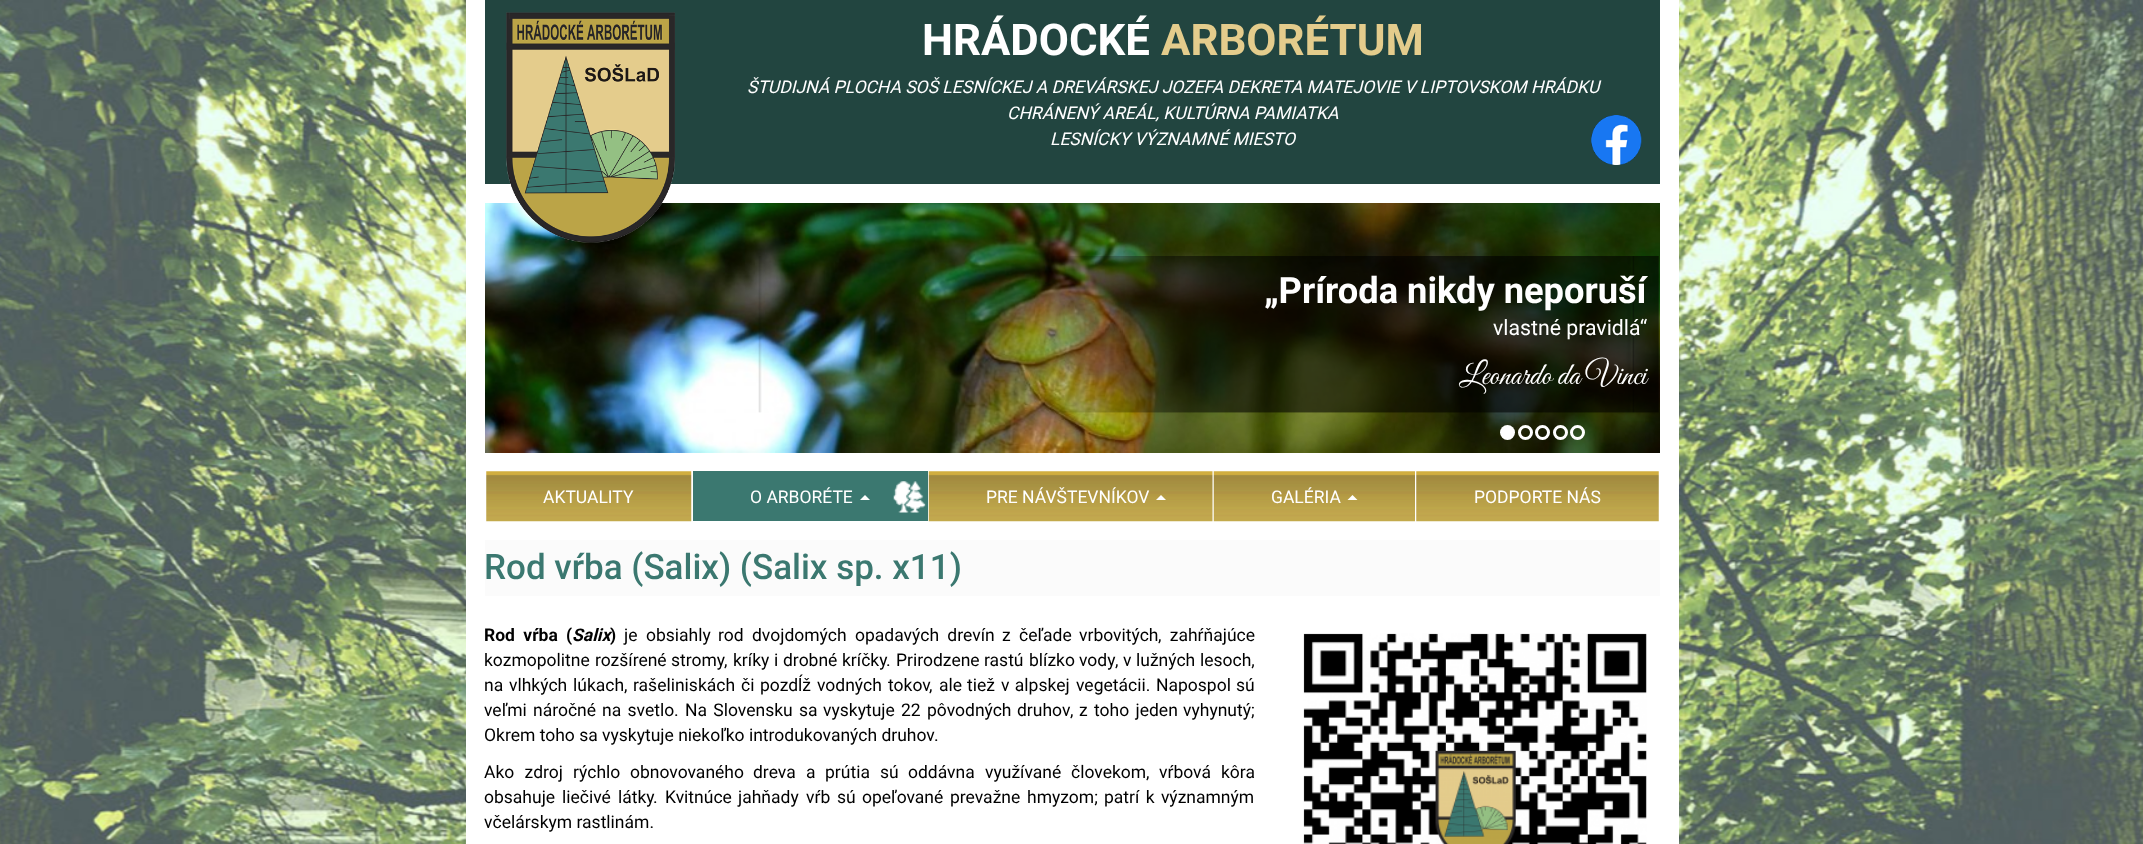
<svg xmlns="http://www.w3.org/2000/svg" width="2143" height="844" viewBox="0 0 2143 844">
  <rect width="100%" height="100%" fill="#fff"/>
  <image x="0" y="0" width="2143" height="844" href="img/1.png"/>
  <path d="M466 0h1213v844H466z" fill="#fff"/>
  <path d="M485 0h1175v184H485z" fill="#224540"/>
  <image x="485" y="203" width="1175" height="250" href="img/4.png"/>
  <image x="506" y="12" width="169" height="231" href="img/2.png"/>
  <image x="1591" y="115" width="51" height="50" href="img/3.png"/>
  <image x="758" y="256" width="901" height="157" href="img/5.png"/>
  <circle cx="1507.5" cy="432.5" r="7.5" fill="#fff"/>
  <circle cx="1525.5" cy="432.5" r="6" fill="none" stroke="#fff" stroke-width="3"/>
  <circle cx="1542.5" cy="432.5" r="6" fill="none" stroke="#fff" stroke-width="3"/>
  <circle cx="1560.5" cy="432.5" r="6" fill="none" stroke="#fff" stroke-width="3"/>
  <circle cx="1577.5" cy="432.5" r="6" fill="none" stroke="#fff" stroke-width="3"/>
  <image x="486" y="471" width="206" height="51" href="img/6.png"/>
  <path d="M693 471h235v50H693z" fill="#3b7870"/>
  <image x="893" y="481" width="33" height="32" href="img/7.png"/>
  <path d="M870 500H860L865 495Z" fill="#fff"/>
  <image x="928" y="471" width="285" height="51" href="img/8.png"/>
  <path d="M1166 500H1156L1161 495Z" fill="#fff"/>
  <image x="1213" y="471" width="202" height="51" href="img/9.png"/>
  <path d="M1357.5 500H1347.5L1352.5 495Z" fill="#fff"/>
  <image x="1416" y="471" width="243" height="51" href="img/10.png"/>
  <path d="M485 540h1175v56H485z" fill="#fbfbfb"/>
  <image x="1303" y="633" width="344" height="211" href="img/11.png"/>
  <text x="922" y="55" font-family="Roboto" font-size="43.75" font-weight="bold" fill="#fff">HRÁDOCKÉ</text>
  <text x="1161" y="55" font-family="Roboto" font-size="43.75" font-weight="bold" fill="#e4cc8c">ARBORÉTUM</text>
  <g font-family="Roboto" font-size="17.5" font-style="italic" fill="#fff">
    <text x="747" y="93">ŠTUDIJNÁ PLOCHA SOŠ LESNÍCKEJ A DREVÁRSKEJ JOZEFA DEKRETA MATEJOVIE V LIPTOVSKOM HRÁDKU</text>
    <text x="1007" y="119">CHRÁNENÝ AREÁL, KULTÚRNA PAMIATKA</text>
    <text x="1050" y="145">LESNÍCKY VÝZNAMNÉ MIESTO</text>
  </g>
  <text x="1264" y="303" font-family="Roboto" font-size="36.25" font-weight="bold" fill="#fff">„Príroda nikdy neporuší</text>
  <text x="1493" y="335" font-family="Roboto" font-size="21.25" fill="#fff">vlastné pravidlá“</text>
  <text x="1459" y="384" font-family="Great Vibes" font-size="31.25" fill="#fff">Leonardo da Vinci</text>
  <g font-family="Roboto" font-size="17.5" fill="#fff">
    <text x="543" y="503">AKTUALITY</text>
    <text x="750" y="503">O ARBORÉTE</text>
    <text x="986" y="503">PRE NÁVŠTEVNÍKOV</text>
    <text x="1271" y="503">GALÉRIA</text>
    <text x="1474" y="503">PODPORTE NÁS</text>
  </g>
  <text x="484" y="579" font-family="Roboto" font-size="35" font-weight="500" fill="#3b7870">Rod vŕba (Salix) (Salix sp. x11)</text>
  <g font-family="Roboto" font-size="17.5" font-weight="bold" fill="#000">
    <text x="484" y="641" word-spacing="4">Rod vŕba</text>
    <text x="566" y="641">(</text>
  </g>
  <text x="572" y="641" font-family="Roboto" font-size="17.5" font-weight="bold" font-style="italic" fill="#000">Salix</text>
  <text x="610" y="641" font-family="Roboto" font-size="17.5" font-weight="bold" fill="#000">)</text>
  <g font-family="Roboto" font-size="17.5" fill="#000">
    <text x="624" y="641">je</text>
    <text x="646" y="641">obsiahly</text>
    <text x="718" y="641">rod</text>
    <text x="752" y="641">dvojdomých</text>
    <text x="855" y="641" word-spacing="4">opadavých drevín</text>
    <text x="1002" y="641" word-spacing="4">z čeľade</text>
    <text x="1079" y="641">vrbovitých</text>
    <text x="1158" y="641" word-spacing="4">, zahŕňajúce</text>
    <text x="484" y="666">kozmopolitne</text>
    <text x="595" y="666">rozšírené</text>
    <text x="671" y="666">stromy</text>
    <text x="733" y="666">kríky</text>
    <text x="774" y="666">i</text>
    <text x="783" y="666">drobné</text>
    <text x="842" y="666">kríčky</text>
    <text x="896" y="666">Prirodzene</text>
    <text x="984" y="666">rastú</text>
    <text x="1029" y="666">blízko</text>
    <text x="1079" y="666">vody</text>
    <text x="1123" y="666">v</text>
    <text x="1136" y="666">lužných</text>
    <text x="1200" y="666">lesoch,</text>
    <text x="724" y="666">,</text>
    <text x="886" y="666">.</text>
    <text x="1115" y="666">,</text>
    <text x="484" y="691">na</text>
    <text x="509" y="691">vlhkých</text>
    <text x="573" y="691">lúkach,</text>
    <text x="633" y="691">rašeliniskách</text>
    <text x="741" y="691">či</text>
    <text x="760" y="691">pozdĺž</text>
    <text x="817" y="691">vodných</text>
    <text x="888" y="691">tokov</text>
    <text x="939" y="691">ale</text>
    <text x="967" y="691">tiež</text>
    <text x="1001" y="691" word-spacing="1">v alpskej</text>
    <text x="1076" y="691">vegetácii.</text>
    <text x="1156" y="691">Napospol</text>
    <text x="1236" y="691">sú</text>
    <text x="929" y="691">,</text>
    <text x="484" y="716">veľmi</text>
    <text x="533" y="716">náročné</text>
    <text x="602" y="716" word-spacing="2">na svetlo</text>
    <text x="674" y="716">.</text>
    <text x="685" y="716" word-spacing="2">Na Slovensku sa</text>
    <text x="823" y="716">vyskytuje</text>
    <text x="901" y="716">22</text>
    <text x="927" y="716">pôvodných</text>
    <text x="1017" y="716">druhov</text>
    <text x="1079" y="716" word-spacing="2">z toho jeden</text>
    <text x="1183" y="716">vyhynutý;</text>
    <text x="1070" y="716">,</text>
    <text x="484" y="741">Okrem toho sa vyskytuje niekoľko introdukovaných druhov.</text>
    <text x="484" y="778" word-spacing="6">Ako zdroj</text>
    <text x="573" y="778">rýchlo</text>
    <text x="630" y="778">obnovovaného</text>
    <text x="753" y="778">dreva</text>
    <text x="806" y="778">a</text>
    <text x="825" y="778">prútia</text>
    <text x="880" y="778">sú</text>
    <text x="908" y="778">oddávna</text>
    <text x="985" y="778">využívané</text>
    <text x="1071" y="778">človekom,</text>
    <text x="1159" y="778">vŕbová</text>
    <text x="1221" y="778">kôra</text>
    <text x="484" y="803">obsahuje</text>
    <text x="562" y="803">liečivé</text>
    <text x="618" y="803">látky</text>
    <text x="653" y="803">.</text>
    <text x="665" y="803">Kvitnúce</text>
    <text x="738" y="803">jahňady</text>
    <text x="806" y="803">vŕb</text>
    <text x="837" y="803" word-spacing="2">sú opeľované</text>
    <text x="950" y="803">prevažne</text>
    <text x="1027" y="803">hmyzom;</text>
    <text x="1104" y="803" word-spacing="2">patrí k významným</text>
    <text x="484" y="828">včelárskym rastlinám.</text>
  </g>
</svg>
